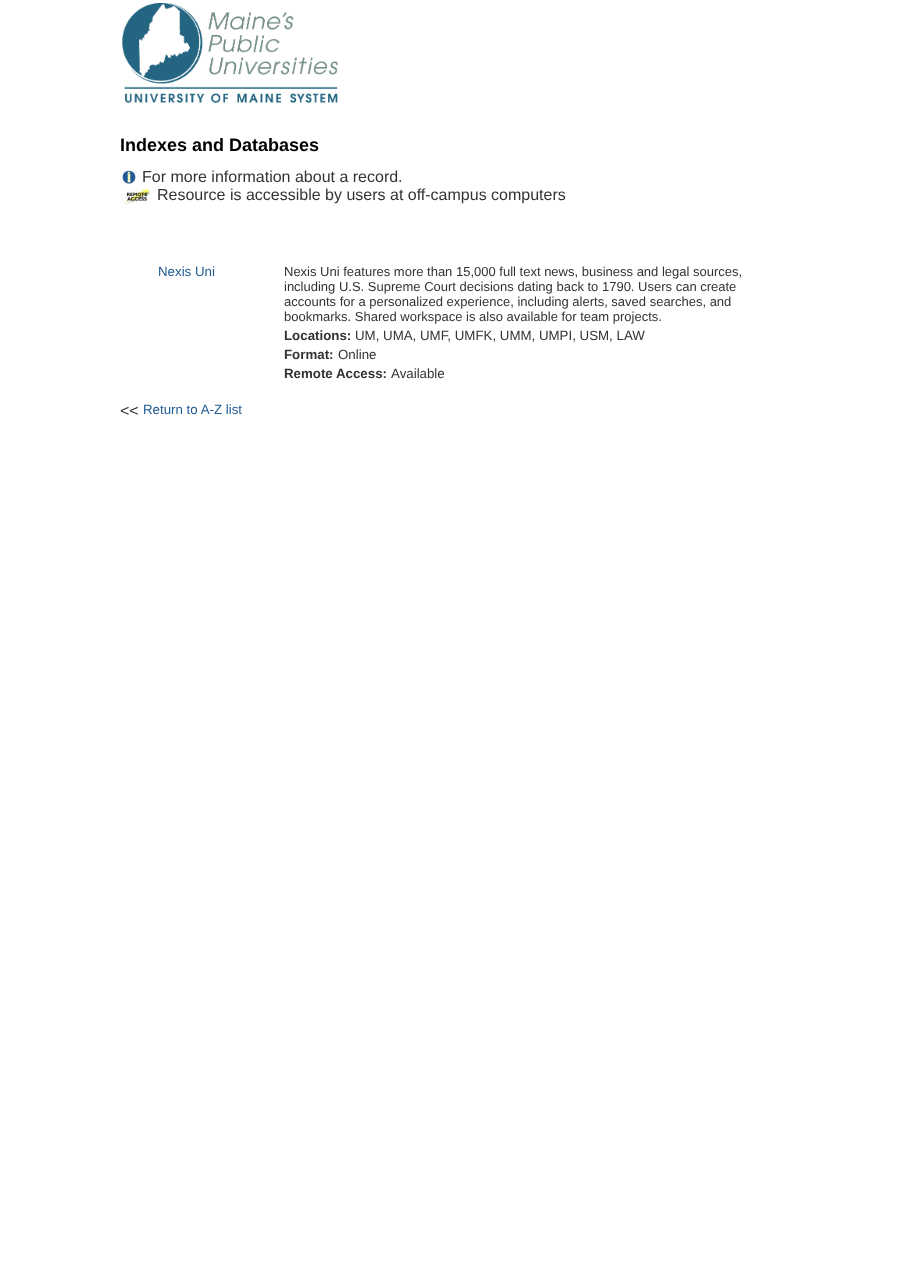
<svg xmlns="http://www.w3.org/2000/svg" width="899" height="1287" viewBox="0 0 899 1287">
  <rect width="100%" height="100%" fill="#fff"/>
  <image x="122" y="3" width="216" height="100" href="img/1.png"/>
  <image x="122" y="170" width="14" height="14" href="img/2.png"/>
  <image x="122" y="188" width="29" height="17" href="img/3.png"/>
  <text x="120" y="151" font-family="Liberation Sans" font-size="18" font-weight="bold" fill="#000">Indexes and Databases</text>
  <g font-family="Liberation Sans" font-size="16" fill="#333">
    <text x="142" y="182">For more information about a record.</text>
    <text x="157" y="200">Resource is accessible by users at off-campus computers</text>
  </g>
  <text x="158" y="276" font-family="Liberation Sans" font-size="13.3" fill="#225b94">Nexis Uni</text>
  <g font-family="Liberation Sans" font-size="13" fill="#333">
    <text x="284" y="276">Nexis Uni features more than 15,000 full text news, business and legal sources,</text>
    <text x="284" y="291">including U.S. Supreme Court decisions dating back to 1790. Users can create</text>
    <text x="284" y="306">accounts for a personalized experience, including alerts, saved searches, and</text>
    <text x="284" y="321">bookmarks. Shared workspace is also available for team projects.</text>
  </g>
  <text x="284" y="340" font-family="Liberation Sans" font-size="13.3" font-weight="bold" fill="#333">Locations:</text>
  <text x="355" y="340" font-family="Liberation Sans" font-size="13.3" fill="#333">UM, UMA, UMF, UMFK, UMM, UMPI, USM, LAW</text>
  <text x="284" y="359" font-family="Liberation Sans" font-size="13.3" font-weight="bold" fill="#333">Format:</text>
  <text x="338" y="359" font-family="Liberation Sans" font-size="13.3" fill="#333">Online</text>
  <text x="284" y="378" font-family="Liberation Sans" font-size="13.3" font-weight="bold" fill="#333">Remote Access:</text>
  <text x="391" y="378" font-family="Liberation Sans" font-size="13.3" fill="#333">Available</text>
  <text x="120" y="416" font-family="Liberation Sans" font-size="16" fill="#333">&lt;&lt;</text>
  <text x="143" y="414" font-family="Liberation Sans" font-size="13.3" fill="#225b94">Return to A-Z list</text>
</svg>
